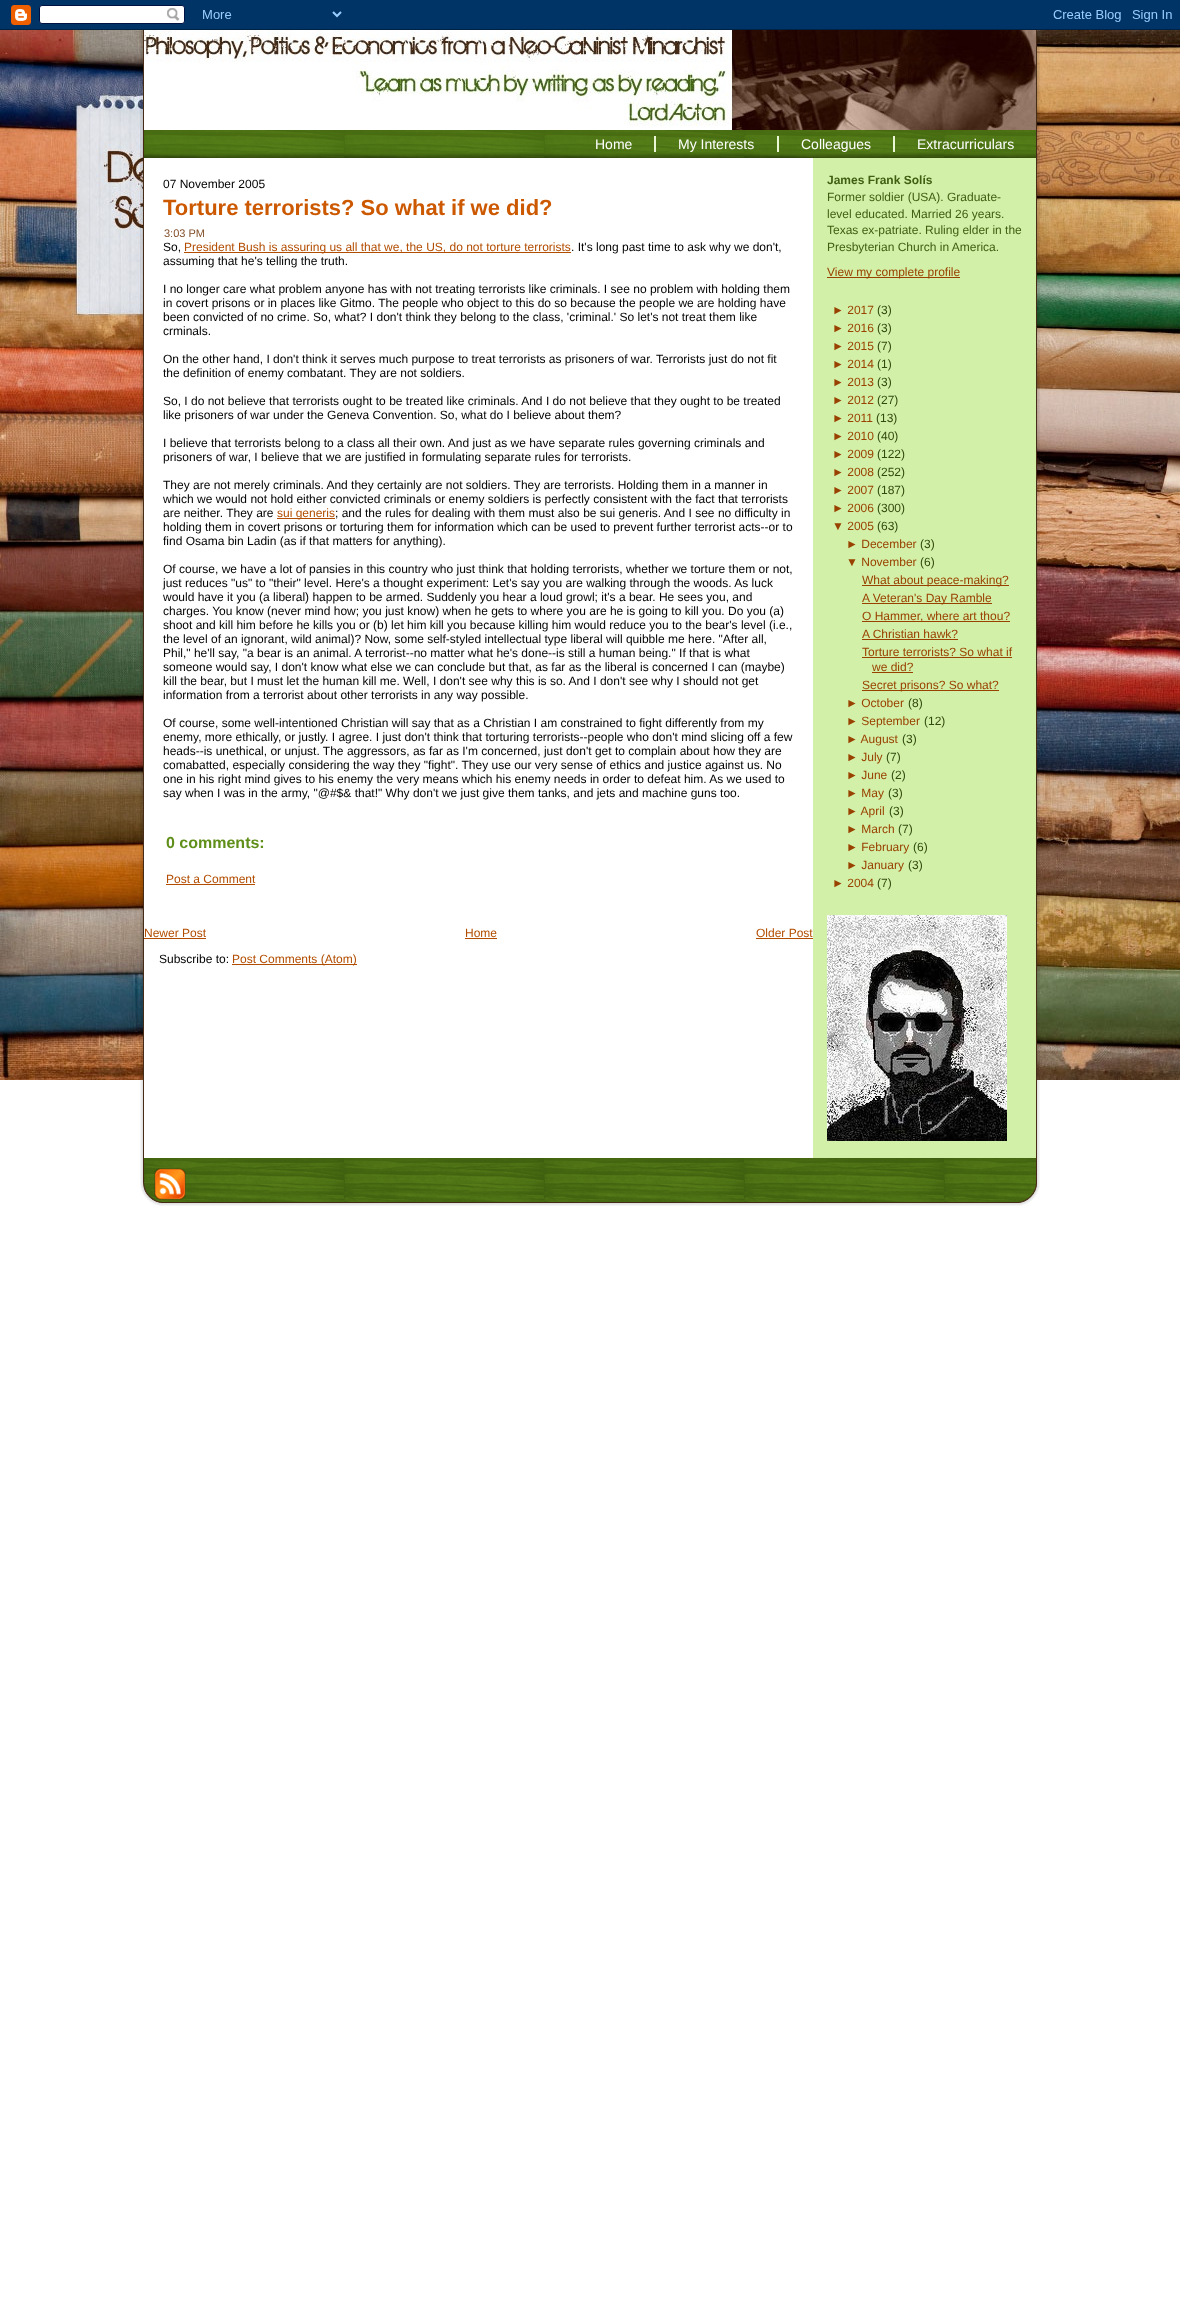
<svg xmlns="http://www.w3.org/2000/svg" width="1180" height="2306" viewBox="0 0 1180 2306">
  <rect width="100%" height="100%" fill="#fff"/>
  <image x="0" y="30" width="1180" height="1050" href="img/1.png"/>
  <image x="0" y="0" width="1180" height="30" href="img/2.png"/>
  <image x="140" y="30" width="4" height="29" href="img/3.png"/>
  <image x="1036" y="30" width="4" height="29" href="img/4.png"/>
  <image x="140" y="59" width="33" height="1114" href="img/5.png"/>
  <image x="1036" y="59" width="4" height="1114" href="img/6.png"/>
  <image x="144" y="30" width="892" height="100" href="img/7.png"/>
  <image x="144" y="130" width="892" height="28" href="img/8.png"/>
  <path d="M654 136h2v16H654z" fill="#e9f7d4"/>
  <path d="M777 136h2v16H777z" fill="#e9f7d4"/>
  <path d="M893 136h2v16H893z" fill="#e9f7d4"/>
  <path d="M173 158h640v922H173z" fill="#fff"/>
  <path d="M184 252h387v1H184z" fill="#b24d00"/>
  <path d="M277 518h58v1H277z" fill="#b24d00"/>
  <path d="M166 884h89v1H166z" fill="#b24d00"/>
  <path d="M144 938h62v1H144z" fill="#b24d00"/>
  <path d="M465 938h32v1H465z" fill="#b24d00"/>
  <path d="M756 938h57v1H756z" fill="#b24d00"/>
  <path d="M232 964h125v1H232z" fill="#b24d00"/>
  <path d="M813 158h223v1000H813z" fill="#d3f0a9"/>
  <path d="M827 277h133v1H827z" fill="#994200"/>
  <path d="M862 585h147v1H862z" fill="#994200"/>
  <path d="M862 603h130v1H862z" fill="#994200"/>
  <path d="M862 621h148v1H862z" fill="#994200"/>
  <path d="M862 639h96v1H862z" fill="#994200"/>
  <path d="M862 657h150v1H862z" fill="#994200"/>
  <path d="M872 672h41v1H872z" fill="#994200"/>
  <path d="M862 690h137v1H862z" fill="#994200"/>
  <image x="827" y="915" width="180" height="226" href="img/9.png"/>
  <image x="140" y="1173" width="33" height="33" href="img/12.png"/>
  <image x="1007" y="1173" width="33" height="33" href="img/14.png"/>
  <image x="144" y="1158" width="892" height="44" href="img/10.png"/>
  <image x="154" y="1168" width="32" height="32" href="img/11.png"/>
  <image x="173" y="1202" width="834" height="4" href="img/13.png"/>
  <g font-family="Liberation Sans" font-size="14" fill="#fff">
    <text x="595" y="149">Home</text>
    <text x="678" y="149">My Interests</text>
    <text x="801" y="149">Colleagues</text>
    <text x="917" y="149">Extracurriculars</text>
  </g>
  <text x="163" y="188" font-family="Liberation Sans" font-size="12" fill="#000">07 November 2005</text>
  <text x="163" y="215" font-family="Liberation Sans" font-size="22" font-weight="bold" fill="#cc5800">Torture terrorists? So what if we did?</text>
  <text x="164" y="237" font-family="Liberation Sans" font-size="11" fill="#814e28">3:03 PM</text>
  <text x="163" y="251" font-family="Liberation Sans" font-size="12" fill="#000">So,</text>
  <text x="184" y="251" font-family="Liberation Sans" font-size="12" fill="#b24d00">President Bush is assuring us all that we, the US, do not torture terrorists</text>
  <g font-family="Liberation Sans" font-size="12" fill="#000">
    <text x="571" y="251">. It's long past time to ask why we don't,</text>
    <text x="163" y="265">assuming that he's telling the truth.</text>
    <text x="163" y="293">I no longer care what problem anyone has with not treating terrorists like criminals. I see no problem with holding them</text>
    <text x="163" y="307">in covert prisons or in places like Gitmo. The people who object to this do so because the people we are holding have</text>
    <text x="163" y="321">been convicted of no crime. So, what? I don't think they belong to the class, 'criminal.' So let's not treat them like</text>
    <text x="163" y="335">crminals.</text>
    <text x="163" y="363">On the other hand, I don't think it serves much purpose to treat terrorists as prisoners of war. Terrorists just do not fit</text>
    <text x="163" y="377">the definition of enemy combatant. They are not soldiers.</text>
    <text x="163" y="405">So, I do not believe that terrorists ought to be treated like criminals. And I do not believe that they ought to be treated</text>
    <text x="163" y="419">like prisoners of war under the Geneva Convention. So, what do I believe about them?</text>
    <text x="163" y="447">I believe that terrorists belong to a class all their own. And just as we have separate rules governing criminals and</text>
    <text x="163" y="461">prisoners of war, I believe that we are justified in formulating separate rules for terrorists.</text>
    <text x="163" y="489">They are not merely criminals. And they certainly are not soldiers. They are terrorists. Holding them in a manner in</text>
    <text x="163" y="503">which we would not hold either convicted criminals or enemy soldiers is perfectly consistent with the fact that terrorists</text>
    <text x="163" y="517">are neither. They are</text>
  </g>
  <text x="277" y="517" font-family="Liberation Sans" font-size="12" fill="#b24d00">sui generis</text>
  <g font-family="Liberation Sans" font-size="12" fill="#000">
    <text x="335" y="517">; and the rules for dealing with them must also be sui generis. And I see no difficulty in</text>
    <text x="163" y="531">holding them in covert prisons or torturing them for information which can be used to prevent further terrorist acts--or to</text>
    <text x="163" y="545">find Osama bin Ladin (as if that matters for anything).</text>
    <text x="163" y="573">Of course, we have a lot of pansies in this country who just think that holding terrorists, whether we torture them or not,</text>
    <text x="163" y="587">just reduces "us" to "their" level. Here's a thought experiment: Let's say you are walking through the woods. As luck</text>
    <text x="163" y="601">would have it you (a liberal) happen to be armed. Suddenly you hear a loud growl; it's a bear. He sees you, and</text>
    <text x="163" y="615">charges. You know (never mind how; you just know) when he gets to where you are he is going to kill you. Do you (a)</text>
    <text x="163" y="629">shoot and kill him before he kills you or (b) let him kill you because killing him would reduce you to the bear's level (i.e.,</text>
    <text x="163" y="643">the level of an ignorant, wild animal)? Now, some self-styled intellectual type liberal will quibble me here. "After all,</text>
    <text x="163" y="657">Phil," he'll say, "a bear is an animal. A terrorist--no matter what he's done--is still a human being." If that is what</text>
    <text x="163" y="671">someone would say, I don't know what else we can conclude but that, as far as the liberal is concerned I can (maybe)</text>
    <text x="163" y="685">kill the bear, but I must let the human kill me. Well, I don't see why this is so. And I don't see why I should not get</text>
    <text x="163" y="699">information from a terrorist about other terrorists in any way possible.</text>
    <text x="163" y="727">Of course, some well-intentioned Christian will say that as a Christian I am constrained to fight differently from my</text>
    <text x="163" y="741">enemy, more ethically, or justly. I agree. I just don't think that torturing terrorists--people who don't mind slicing off a few</text>
    <text x="163" y="755">heads--is unethical, or unjust. The aggressors, as far as I'm concerned, just don't get to complain about how they are</text>
    <text x="163" y="769">comabatted, especially considering the way they "fight". They use our very sense of ethics and justice against us. No</text>
    <text x="163" y="783">one in his right mind gives to his enemy the very means which his enemy needs in order to defeat him. As we used to</text>
    <text x="163" y="797">say when I was in the army, "@#$&amp; that!" Why don't we just give them tanks, and jets and machine guns too.</text>
  </g>
  <text x="166" y="848" font-family="Liberation Sans" font-size="16" font-weight="bold" fill="#608f19">0 comments:</text>
  <g font-family="Liberation Sans" font-size="12" fill="#b24d00">
    <text x="166" y="883">Post a Comment</text>
    <text x="144" y="937">Newer Post</text>
    <text x="465" y="937">Home</text>
    <text x="756" y="937">Older Post</text>
  </g>
  <text x="159" y="963" font-family="Liberation Sans" font-size="12" fill="#000">Subscribe to:</text>
  <text x="232" y="963" font-family="Liberation Sans" font-size="12" fill="#b24d00">Post Comments (Atom)</text>
  <text x="827" y="184" font-family="Liberation Sans" font-size="12" font-weight="bold" fill="#405f11">James Frank Solís</text>
  <g font-family="Liberation Sans" font-size="12" fill="#405f11">
    <text x="827" y="201">Former soldier (USA). Graduate-</text>
    <text x="827" y="218">level educated. Married 26 years.</text>
    <text x="827" y="234">Texas ex-patriate. Ruling elder in the</text>
    <text x="827" y="251">Presbyterian Church in America.</text>
  </g>
  <g font-family="Liberation Sans" font-size="12" fill="#994200">
    <text x="827" y="276">View my complete profile</text>
    <text x="832" y="314">► 2017</text>
  </g>
  <text x="877" y="314" font-family="Liberation Sans" font-size="12" fill="#314a0d">(3)</text>
  <text x="832" y="332" font-family="Liberation Sans" font-size="12" fill="#994200">► 2016</text>
  <text x="877" y="332" font-family="Liberation Sans" font-size="12" fill="#314a0d">(3)</text>
  <text x="832" y="350" font-family="Liberation Sans" font-size="12" fill="#994200">► 2015</text>
  <text x="877" y="350" font-family="Liberation Sans" font-size="12" fill="#314a0d">(7)</text>
  <text x="832" y="368" font-family="Liberation Sans" font-size="12" fill="#994200">► 2014</text>
  <text x="877" y="368" font-family="Liberation Sans" font-size="12" fill="#314a0d">(1)</text>
  <text x="832" y="386" font-family="Liberation Sans" font-size="12" fill="#994200">► 2013</text>
  <text x="877" y="386" font-family="Liberation Sans" font-size="12" fill="#314a0d">(3)</text>
  <text x="832" y="404" font-family="Liberation Sans" font-size="12" fill="#994200">► 2012</text>
  <text x="877" y="404" font-family="Liberation Sans" font-size="12" fill="#314a0d">(27)</text>
  <text x="832" y="422" font-family="Liberation Sans" font-size="12" fill="#994200">► 2011</text>
  <text x="876" y="422" font-family="Liberation Sans" font-size="12" fill="#314a0d">(13)</text>
  <text x="832" y="440" font-family="Liberation Sans" font-size="12" fill="#994200">► 2010</text>
  <text x="877" y="440" font-family="Liberation Sans" font-size="12" fill="#314a0d">(40)</text>
  <text x="832" y="458" font-family="Liberation Sans" font-size="12" fill="#994200">► 2009</text>
  <text x="877" y="458" font-family="Liberation Sans" font-size="12" fill="#314a0d">(122)</text>
  <text x="832" y="476" font-family="Liberation Sans" font-size="12" fill="#994200">► 2008</text>
  <text x="877" y="476" font-family="Liberation Sans" font-size="12" fill="#314a0d">(252)</text>
  <text x="832" y="494" font-family="Liberation Sans" font-size="12" fill="#994200">► 2007</text>
  <text x="877" y="494" font-family="Liberation Sans" font-size="12" fill="#314a0d">(187)</text>
  <text x="832" y="512" font-family="Liberation Sans" font-size="12" fill="#994200">► 2006</text>
  <text x="877" y="512" font-family="Liberation Sans" font-size="12" fill="#314a0d">(300)</text>
  <text x="832" y="530" font-family="Liberation Sans" font-size="12" fill="#994200">▼ 2005</text>
  <text x="877" y="530" font-family="Liberation Sans" font-size="12" fill="#314a0d">(63)</text>
  <text x="846" y="548" font-family="Liberation Sans" font-size="12" fill="#994200">► December</text>
  <text x="920" y="548" font-family="Liberation Sans" font-size="12" fill="#314a0d">(3)</text>
  <text x="846" y="566" font-family="Liberation Sans" font-size="12" fill="#994200">▼ November</text>
  <text x="920" y="566" font-family="Liberation Sans" font-size="12" fill="#314a0d">(6)</text>
  <g font-family="Liberation Sans" font-size="12" fill="#994200">
    <text x="862" y="584">What about peace-making?</text>
    <text x="862" y="602">A Veteran's Day Ramble</text>
    <text x="862" y="620">O Hammer, where art thou?</text>
    <text x="862" y="638">A Christian hawk?</text>
    <text x="862" y="656">Torture terrorists? So what if</text>
    <text x="872" y="671">we did?</text>
    <text x="862" y="689">Secret prisons? So what?</text>
    <text x="846" y="707">► October</text>
  </g>
  <text x="908" y="707" font-family="Liberation Sans" font-size="12" fill="#314a0d">(8)</text>
  <text x="846" y="725" font-family="Liberation Sans" font-size="12" fill="#994200">► September</text>
  <text x="924" y="725" font-family="Liberation Sans" font-size="12" fill="#314a0d">(12)</text>
  <text x="846" y="743" font-family="Liberation Sans" font-size="12" fill="#994200">► August</text>
  <text x="902" y="743" font-family="Liberation Sans" font-size="12" fill="#314a0d">(3)</text>
  <text x="846" y="761" font-family="Liberation Sans" font-size="12" fill="#994200">► July</text>
  <text x="886" y="761" font-family="Liberation Sans" font-size="12" fill="#314a0d">(7)</text>
  <text x="846" y="779" font-family="Liberation Sans" font-size="12" fill="#994200">► June</text>
  <text x="891" y="779" font-family="Liberation Sans" font-size="12" fill="#314a0d">(2)</text>
  <text x="846" y="797" font-family="Liberation Sans" font-size="12" fill="#994200">► May</text>
  <text x="888" y="797" font-family="Liberation Sans" font-size="12" fill="#314a0d">(3)</text>
  <text x="846" y="815" font-family="Liberation Sans" font-size="12" fill="#994200">► April</text>
  <text x="889" y="815" font-family="Liberation Sans" font-size="12" fill="#314a0d">(3)</text>
  <text x="846" y="833" font-family="Liberation Sans" font-size="12" fill="#994200">► March</text>
  <text x="898" y="833" font-family="Liberation Sans" font-size="12" fill="#314a0d">(7)</text>
  <text x="846" y="851" font-family="Liberation Sans" font-size="12" fill="#994200">► February</text>
  <text x="913" y="851" font-family="Liberation Sans" font-size="12" fill="#314a0d">(6)</text>
  <text x="846" y="869" font-family="Liberation Sans" font-size="12" fill="#994200">► January</text>
  <text x="908" y="869" font-family="Liberation Sans" font-size="12" fill="#314a0d">(3)</text>
  <text x="832" y="887" font-family="Liberation Sans" font-size="12" fill="#994200">► 2004</text>
  <text x="877" y="887" font-family="Liberation Sans" font-size="12" fill="#314a0d">(7)</text>
</svg>
